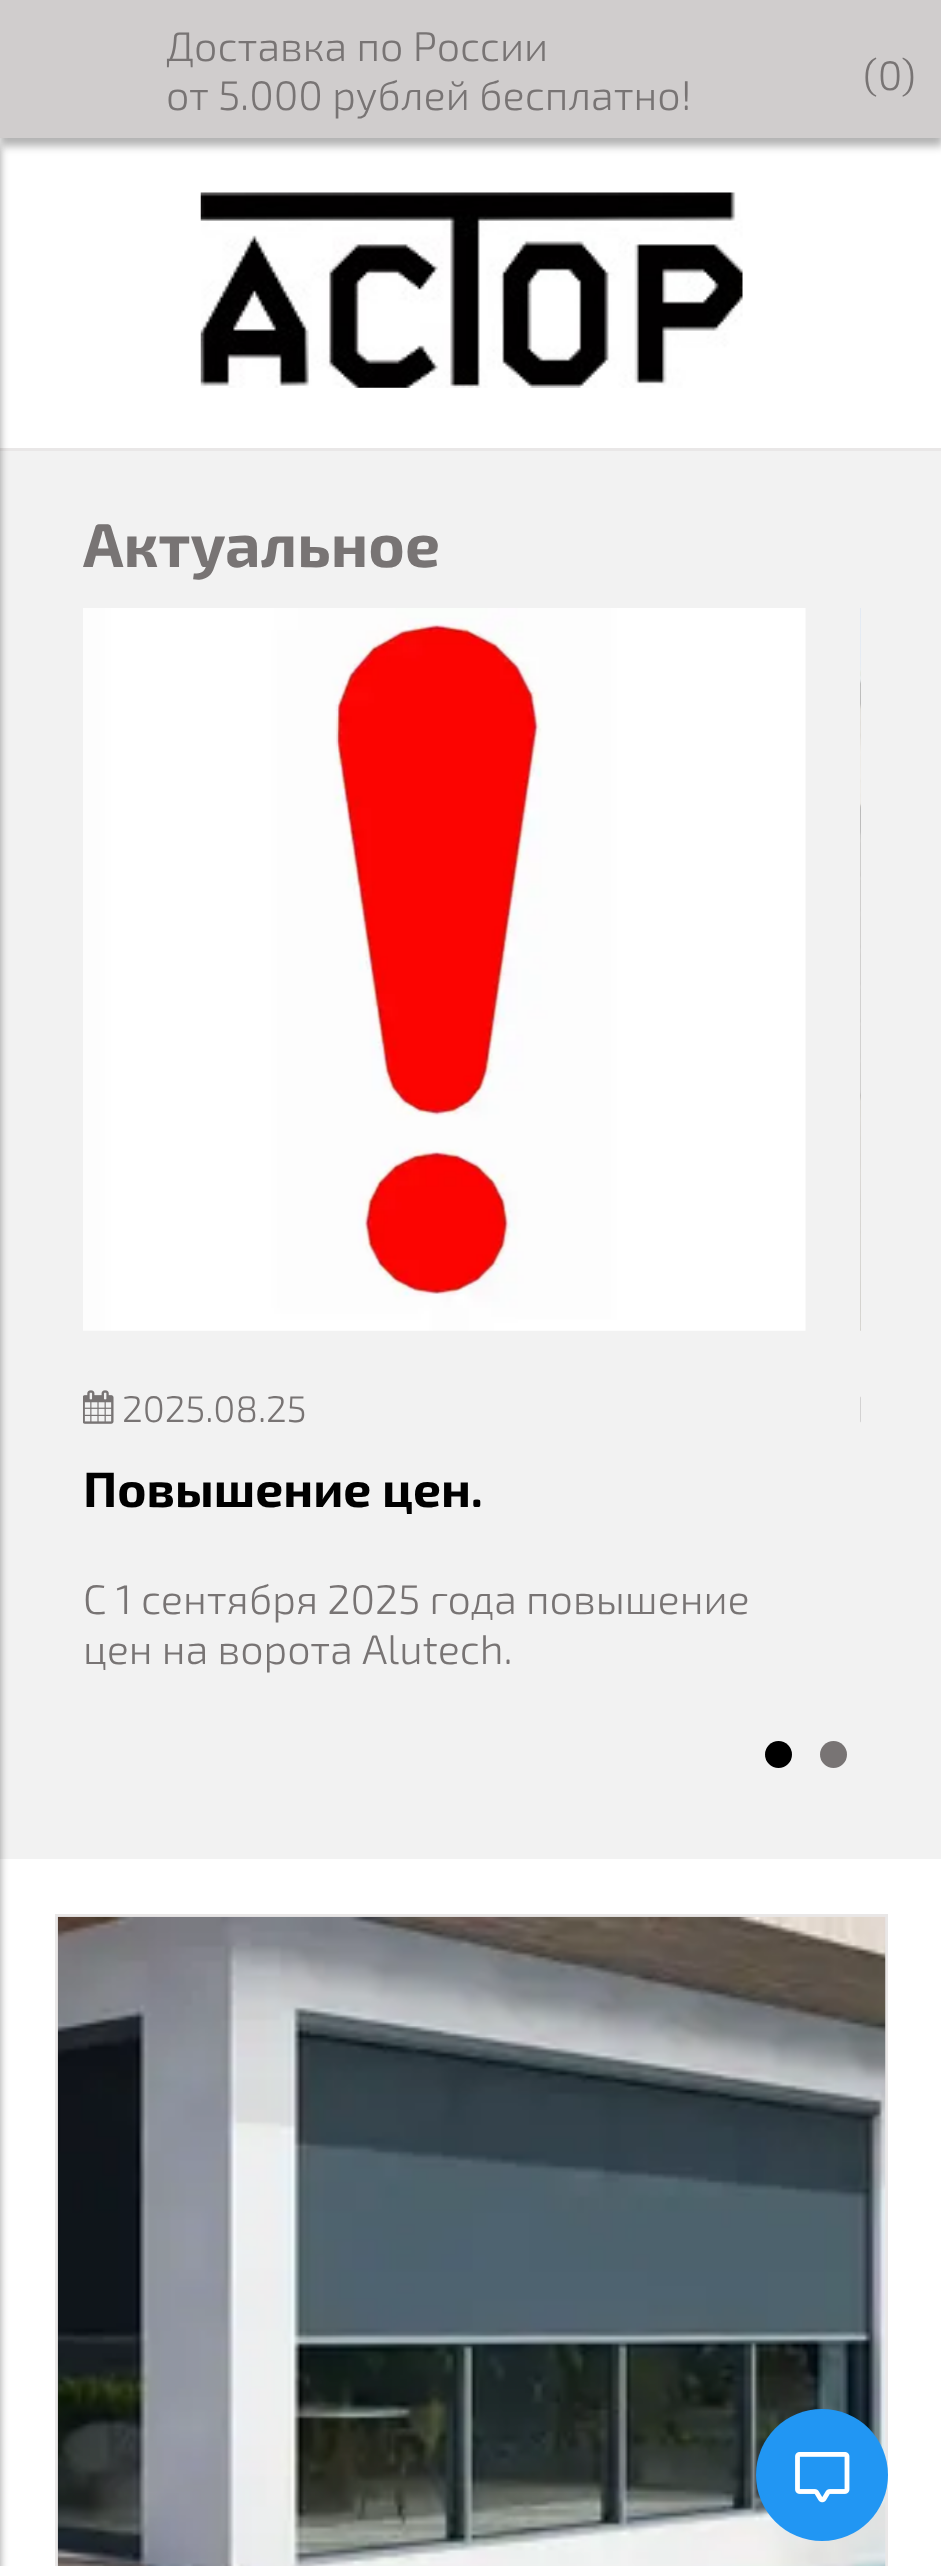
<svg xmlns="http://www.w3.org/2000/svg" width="941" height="2566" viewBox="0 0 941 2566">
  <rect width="100%" height="100%" fill="#fff"/>
  <path d="M0 8h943v138H0z" fill="#0000004d" filter="blur(4px)"/>
  <path d="M0 0h941v138H0z" fill="#d0cdcd"/>
  <path d="M0 448h941v3H0z" fill="#e9e7e7"/>
  <path d="M0 451h941v1408H0z" fill="#f2f2f2"/>
  <path d="M-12 146h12v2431H-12z" fill="#00000066" filter="blur(4px)"/>
  <image x="200" y="192" width="543" height="196" href="img/1.png"/>
  <image x="860" y="608" width="1" height="723" href="img/2.png"/>
  <image x="860" y="1396" width="1" height="27" href="img/3.png"/>
  <image x="83" y="608" width="723" height="723" href="img/4.png"/>
  <image x="83" y="1390" width="31" height="34" href="img/5.png"/>
  <circle cx="778.5" cy="1754.5" r="13.5" fill="#000"/>
  <circle cx="833.5" cy="1754.5" r="13.5" fill="#787474"/>
  <path d="M56.5 1915.5h830v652H56.5z" fill="none" stroke="#e9e7e7" stroke-width="3"/>
  <image x="57" y="1916" width="829" height="650" href="img/6.png"/>
  <circle cx="822" cy="2475" r="66" fill="#2196f3"/>
  <image x="795" y="2452" width="55" height="51" href="img/7.png"/>
  <g font-family="'Exo 2'" font-size="41.25" font-weight="300" fill="#787474">
    <text x="166" y="61">Доставка по России</text>
    <text x="166" y="110">от 5.000 рублей бесплатно!</text>
    <text x="863" y="90">(0</text>
    <text x="901" y="90">)</text>
  </g>
  <text x="83" y="567" font-family="'Exo 2'" font-size="62" font-weight="bold" fill="#787474">Актуальное</text>
  <text x="122" y="1422" font-family="'Exo 2'" font-size="37" font-weight="300" fill="#787474">2025.08.25</text>
  <text x="83" y="1507" font-family="'Exo 2'" font-size="49.5" font-weight="bold" fill="#000">Повышение цен.</text>
  <g font-family="'Exo 2'" font-size="41.25" font-weight="300" fill="#787474">
    <text x="83" y="1614">С 1 сентября 2025 года повышение</text>
    <text x="83" y="1664">цен на ворота Alutech.</text>
  </g>
</svg>
